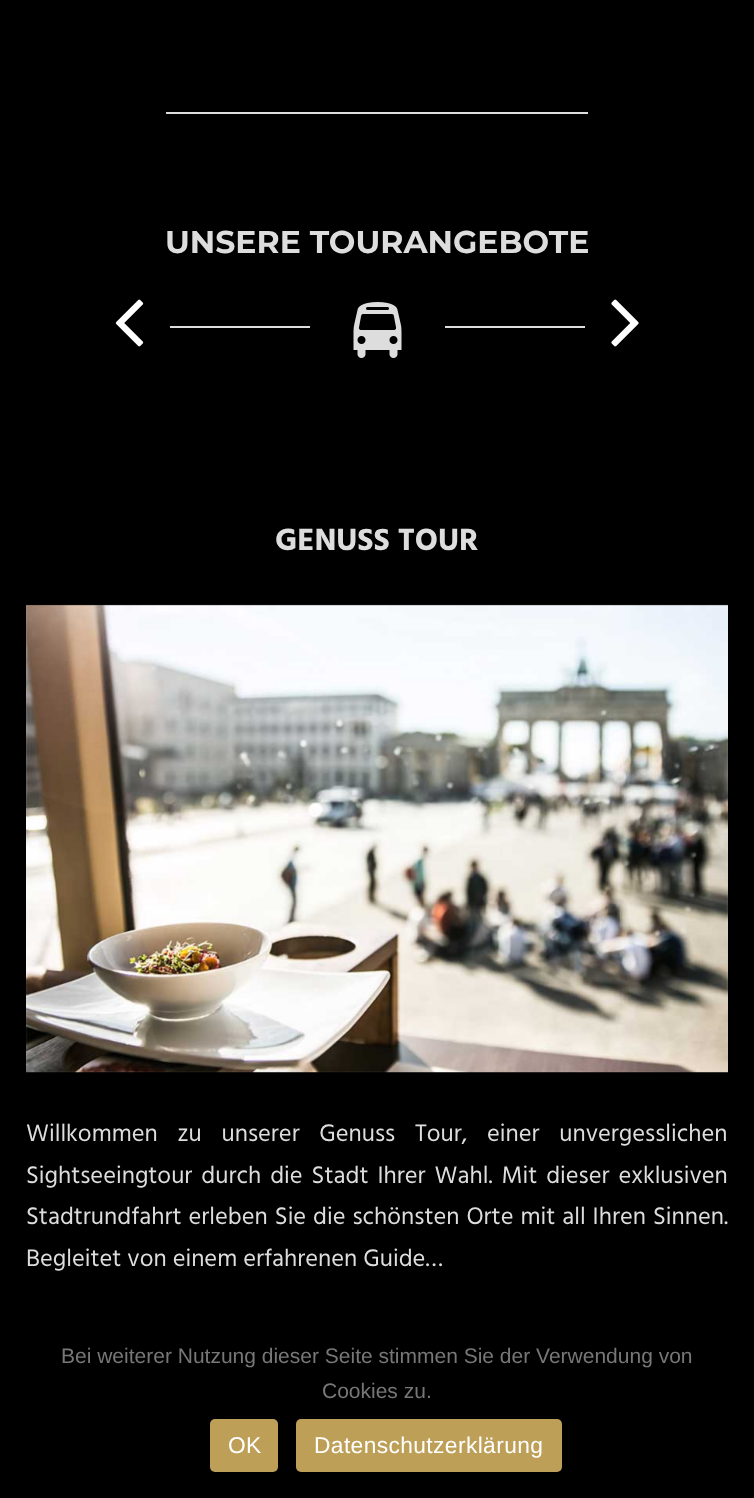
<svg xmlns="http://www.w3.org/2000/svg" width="754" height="1498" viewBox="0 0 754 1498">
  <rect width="100%" height="100%" fill="#000"/>
  <path d="M166 112h422v2H166z" fill="#ddd"/>
  <image x="115" y="299" width="29" height="48" href="img/1.png"/>
  <path d="M170 326h140v2H170z" fill="#ddd"/>
  <image x="353" y="302" width="49" height="56" href="img/2.png"/>
  <path d="M445 326h140v2H445z" fill="#ddd"/>
  <image x="611" y="299" width="28" height="48" href="img/3.png"/>
  <image x="26" y="604" width="702" height="469" href="img/4.png"/>
  <rect x="210" y="1419" width="68" height="53" rx="5" fill="#be9f57"/>
  <rect x="296" y="1419" width="266" height="53" rx="5" fill="#be9f57"/>
  <text x="165" y="253" font-family="Montserrat" font-size="31.5" font-weight="bold" fill="#ddd">UNSERE TOURANGEBOTE</text>
  <text x="275" y="550" font-family="Hind" font-size="31.5" font-weight="bold" fill="#ddd">GENUSS TOUR</text>
  <g font-family="Hind" font-size="24.5" fill="#ddd">
    <text x="26" y="1141" word-spacing="13.75">Willkommen zu unserer Genuss Tour, einer unvergesslichen</text>
    <text x="26" y="1183" word-spacing="3">Sightseeingtour durch die Stadt Ihrer Wahl. Mit dieser exklusiven</text>
    <text x="26" y="1224" word-spacing="1">Stadtrundfahrt erleben Sie die schönsten Orte mit all Ihren Sinnen.</text>
    <text x="26" y="1266">Begleitet von einem erfahrenen Guide…</text>
  </g>
  <g font-family="Liberation Sans" font-size="21" fill="#777">
    <text x="61" y="1363">Bei weiterer Nutzung dieser Seite stimmen Sie der Verwendung von</text>
    <text x="322" y="1398">Cookies zu.</text>
  </g>
  <g font-family="Liberation Sans" font-size="22.75" letter-spacing="0.4" fill="#fff">
    <text x="228" y="1453">OK</text>
    <text x="314" y="1453">Datenschutzerklärung</text>
  </g>
</svg>
